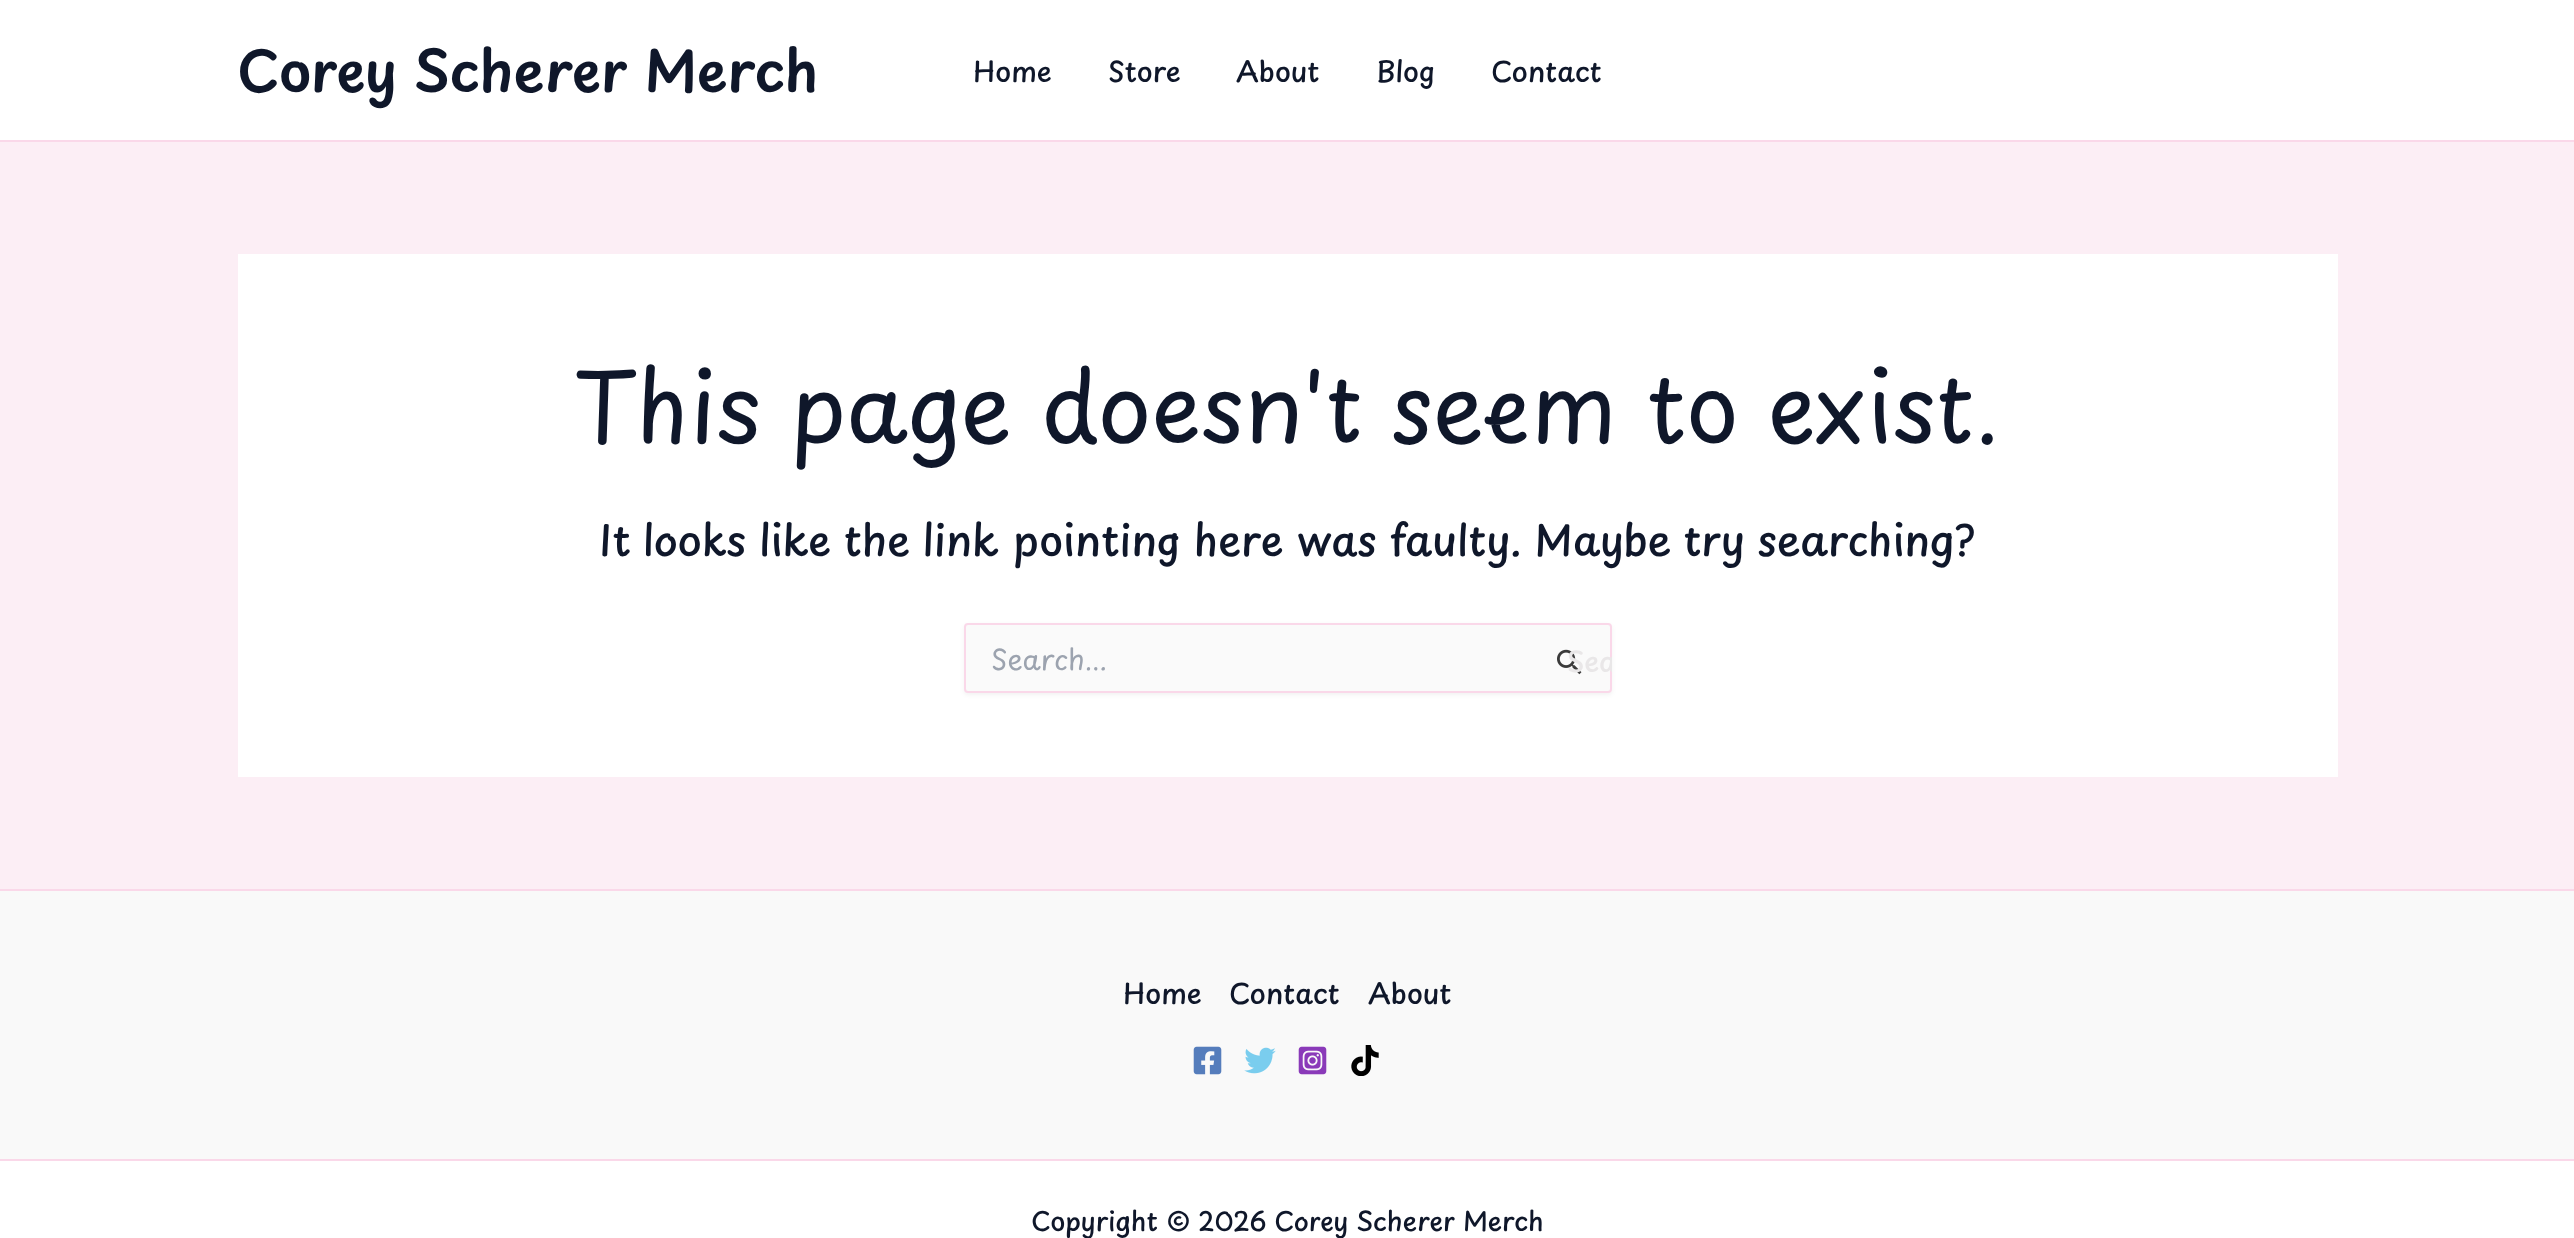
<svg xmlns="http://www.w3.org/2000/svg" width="2574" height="1238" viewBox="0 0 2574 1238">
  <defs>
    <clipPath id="clip1"><rect x="1533" y="623" width="79" height="74" rx="4"/></clipPath>
  </defs>
  <rect width="100%" height="100%" fill="#fceef5"/>
  <path d="M0 0h2574v140H0z" fill="#fff"/>
  <path d="M0 140h2574v2H0z" fill="#fad8e9"/>
  <path d="M238 254h2100v523H238z" fill="#fff"/>
  <rect x="964" y="625" width="648" height="70" rx="4" fill="#0000000d" filter="blur(2px)"/>
  <rect x="965" y="624" width="646" height="68" rx="3" fill="#fafafa" stroke="#fad8e9" stroke-width="2"/>
  <image x="1557" y="649" width="25" height="26" href="img/1.png"/>
  <path d="M0 891h2574v268H0z" fill="#f9f9f9"/>
  <path d="M0 889h2574v2H0z" fill="#fad8e9"/>
  <image x="1193" y="1046" width="29" height="29" href="img/2.png"/>
  <image x="1244" y="1047" width="32" height="27" href="img/3.png"/>
  <image x="1298" y="1046" width="29" height="29" href="img/4.png"/>
  <image x="1351" y="1045" width="28" height="31" href="img/5.png"/>
  <path d="M0 1161h2574v77H0z" fill="#fff"/>
  <path d="M0 1159h2574v2H0z" fill="#fad8e9"/>
  <text x="237" y="92" font-family="Playpen Sans" font-size="56" font-weight="600" fill="#0f172a">Corey Scherer Merch</text>
  <g font-family="Playpen Sans" font-size="28" font-weight="500" fill="#0f172a">
    <text x="973" y="82">Home</text>
    <text x="1108" y="82">Store</text>
    <text x="1236" y="82">About</text>
    <text x="1376" y="82">Blog</text>
    <text x="1491" y="82">Contact</text>
  </g>
  <text x="573" y="443" font-family="Playpen Sans" font-size="94.5" fill="#0f172a">This page doesn't seem to exist.</text>
  <text x="599" y="556" font-family="Playpen Sans" font-size="42" font-weight="500" fill="#0f172a">It looks like the link pointing here was faulty. Maybe try searching?</text>
  <text x="991" y="670" font-family="Playpen Sans" font-size="28" fill="#9ca3af">Search...</text>
  <g clip-path="url(#clip1)">
    <text x="1567" y="672" font-family="Playpen Sans" font-size="28" font-weight="500" fill="#e9e7e8">Sea</text>
  </g>
  <g font-family="Playpen Sans" font-size="28" font-weight="500" fill="#0f172a">
    <text x="1123" y="1004">Home</text>
    <text x="1229" y="1004">Contact</text>
    <text x="1368" y="1004">About</text>
  </g>
  <text x="1031" y="1231" font-family="Playpen Sans" font-size="26.25" font-weight="500" fill="#0f172a">Copyright © 2026 Corey Scherer Merch</text>
</svg>
